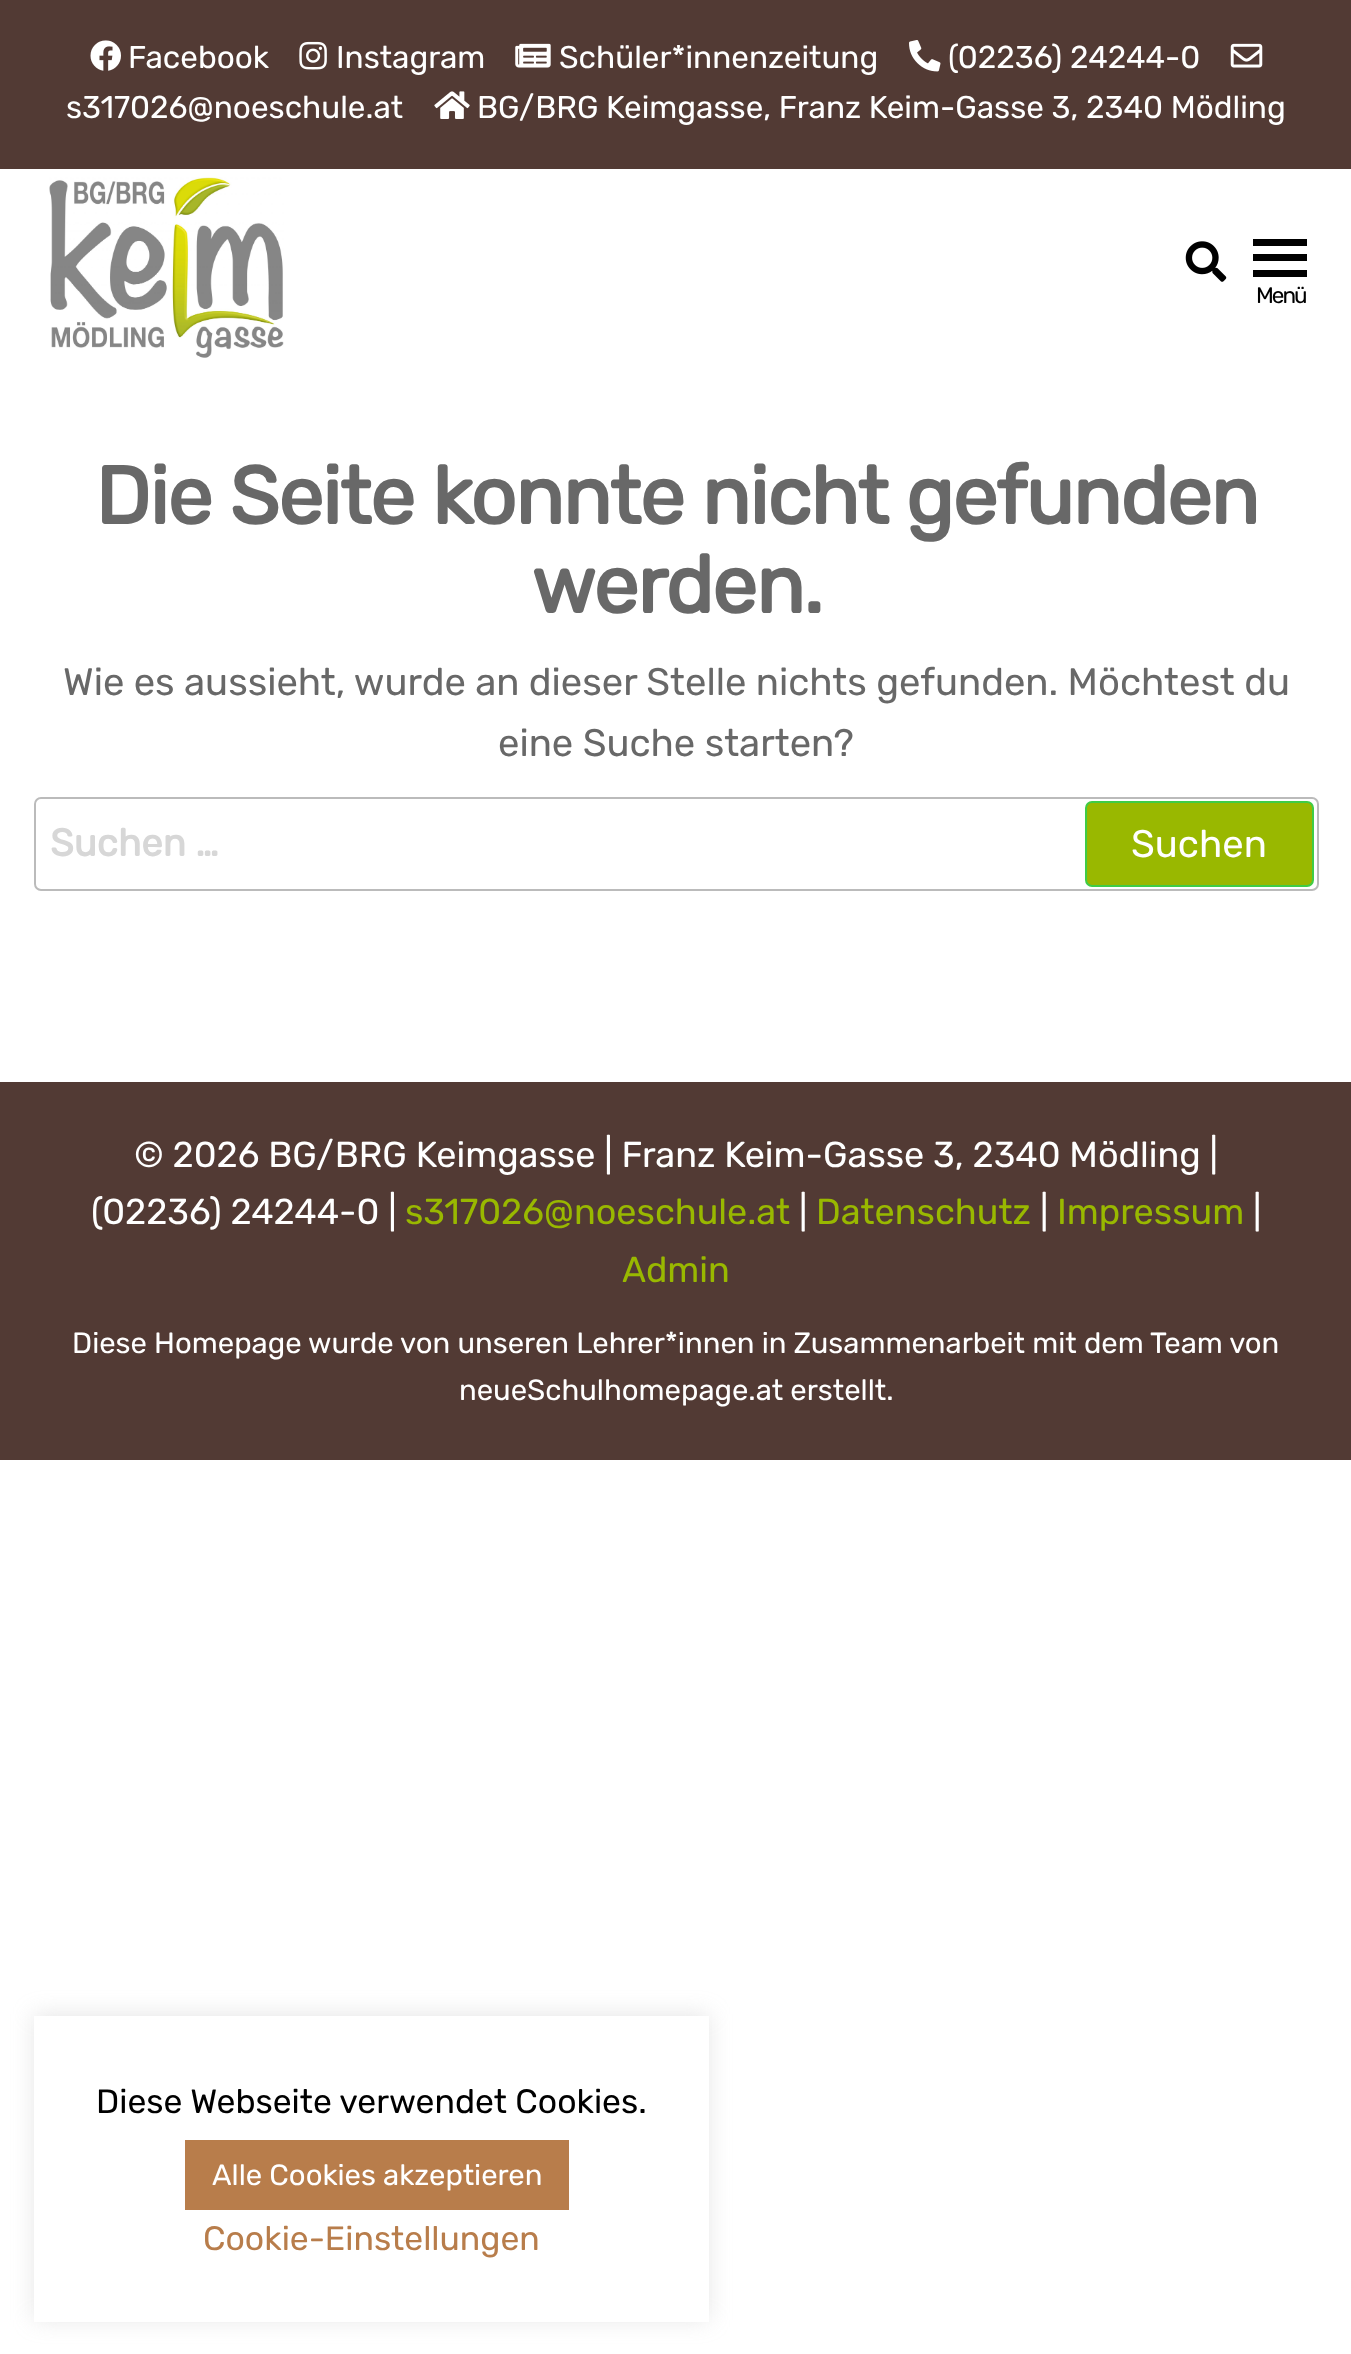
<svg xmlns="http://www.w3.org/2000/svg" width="1351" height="2354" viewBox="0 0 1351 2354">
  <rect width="100%" height="100%" fill="#fff"/>
  <path d="M0 0h1351v169H0z" fill="#523a34"/>
  <image x="90" y="40" width="31" height="31" href="img/1.png"/>
  <image x="299" y="41" width="28" height="29" href="img/2.png"/>
  <image x="515" y="43" width="36" height="25" href="img/3.png"/>
  <image x="909" y="40" width="32" height="32" href="img/4.png"/>
  <image x="1230" y="43" width="33" height="25" href="img/5.png"/>
  <image x="434" y="91" width="36" height="28" href="img/6.png"/>
  <image x="49" y="177" width="235" height="181" href="img/7.png"/>
  <image x="1185" y="241" width="42" height="41" href="img/8.png"/>
  <path d="M1253 239h54v7H1253z" fill="#000"/>
  <path d="M1253 254h54v7H1253z" fill="#000"/>
  <path d="M1253 270h54v7H1253z" fill="#000"/>
  <rect x="35" y="798" width="1283" height="92" rx="6" fill="none" stroke="#bbb" stroke-width="2"/>
  <rect x="1086" y="802" width="227" height="84" rx="6" fill="#99b800" stroke="#3fcc46" stroke-width="2"/>
  <path d="M0 1082h1351v378H0z" fill="#523a34"/>
  <path d="M34 2014h675v306H34z" fill="#acabab4d" filter="blur(11px)"/>
  <path d="M34 2016h675v306H34z" fill="#fff"/>
  <path d="M185 2140h384v70H185z" fill="#b87d4b"/>
  <g font-family="Rubik" font-size="31.5" font-weight="300" fill="#fff">
    <text x="128" y="68">Facebook</text>
    <text x="336" y="68">Instagram</text>
    <text x="559" y="68">Schüler*innenzeitung</text>
    <text x="948" y="68">(02236) 24244-0</text>
    <text x="66" y="118">s317026@noeschule.at</text>
    <text x="477" y="118">BG/BRG Keimgasse, Franz Keim-Gasse 3, 2340 Mödling</text>
  </g>
  <text x="1256" y="303" font-family="Rubik" font-size="22.5" font-weight="300" letter-spacing="-2" fill="#000">Menü</text>
  <g font-family="Rubik" font-size="81" font-weight="bold" letter-spacing="-1.6" fill="#686868">
    <text x="95" y="524">Die Seite konnte nicht gefunden</text>
    <text x="531" y="613">werden.</text>
  </g>
  <g font-family="Rubik" font-size="38.25" font-weight="300" fill="#686868">
    <text x="63" y="695">Wie es aussieht, wurde an dieser Stelle nichts gefunden. Möchtest du</text>
    <text x="498" y="756">eine Suche starten?</text>
  </g>
  <text x="50" y="856" font-family="Rubik" font-size="38.25" font-weight="bold" fill="#d7d7d7">Suchen …</text>
  <text x="1131" y="857" font-family="Rubik" font-size="38.25" font-weight="300" fill="#fff">Suchen</text>
  <g font-family="Rubik" font-size="36" font-weight="300" fill="#fff">
    <text x="134" y="1167">© 2026 BG/BRG Keimgasse | Franz Keim-Gasse 3, 2340 Mödling |</text>
    <text x="91" y="1224">(02236) 24244-0 |</text>
  </g>
  <text x="405" y="1224" font-family="Rubik" font-size="36" font-weight="300" fill="#99b800">s317026@noeschule.at</text>
  <text x="799" y="1224" font-family="Rubik" font-size="36" font-weight="300" fill="#fff">|</text>
  <text x="816" y="1224" font-family="Rubik" font-size="36" font-weight="300" fill="#99b800">Datenschutz</text>
  <text x="1040" y="1224" font-family="Rubik" font-size="36" font-weight="300" fill="#fff">|</text>
  <text x="1057" y="1224" font-family="Rubik" font-size="36" font-weight="300" fill="#99b800">Impressum</text>
  <text x="1253" y="1224" font-family="Rubik" font-size="36" font-weight="300" fill="#fff">|</text>
  <text x="622" y="1282" font-family="Rubik" font-size="36" font-weight="300" fill="#99b800">Admin</text>
  <g font-family="Rubik" font-size="29.25" font-weight="300" fill="#fff">
    <text x="72" y="1353">Diese Homepage wurde von unseren Lehrer*innen in Zusammenarbeit mit dem Team von</text>
    <text x="459" y="1400">neueSchulhomepage.at erstellt.</text>
  </g>
  <text x="96" y="2113" font-family="Rubik" font-size="33.75" font-weight="300" fill="#000">Diese Webseite verwendet Cookies.</text>
  <text x="212" y="2185" font-family="Rubik" font-size="29.25" font-weight="300" fill="#fff">Alle Cookies akzeptieren</text>
  <text x="203" y="2250" font-family="Rubik" font-size="33.75" font-weight="300" fill="#b87d4b">Cookie-Einstellungen</text>
</svg>
